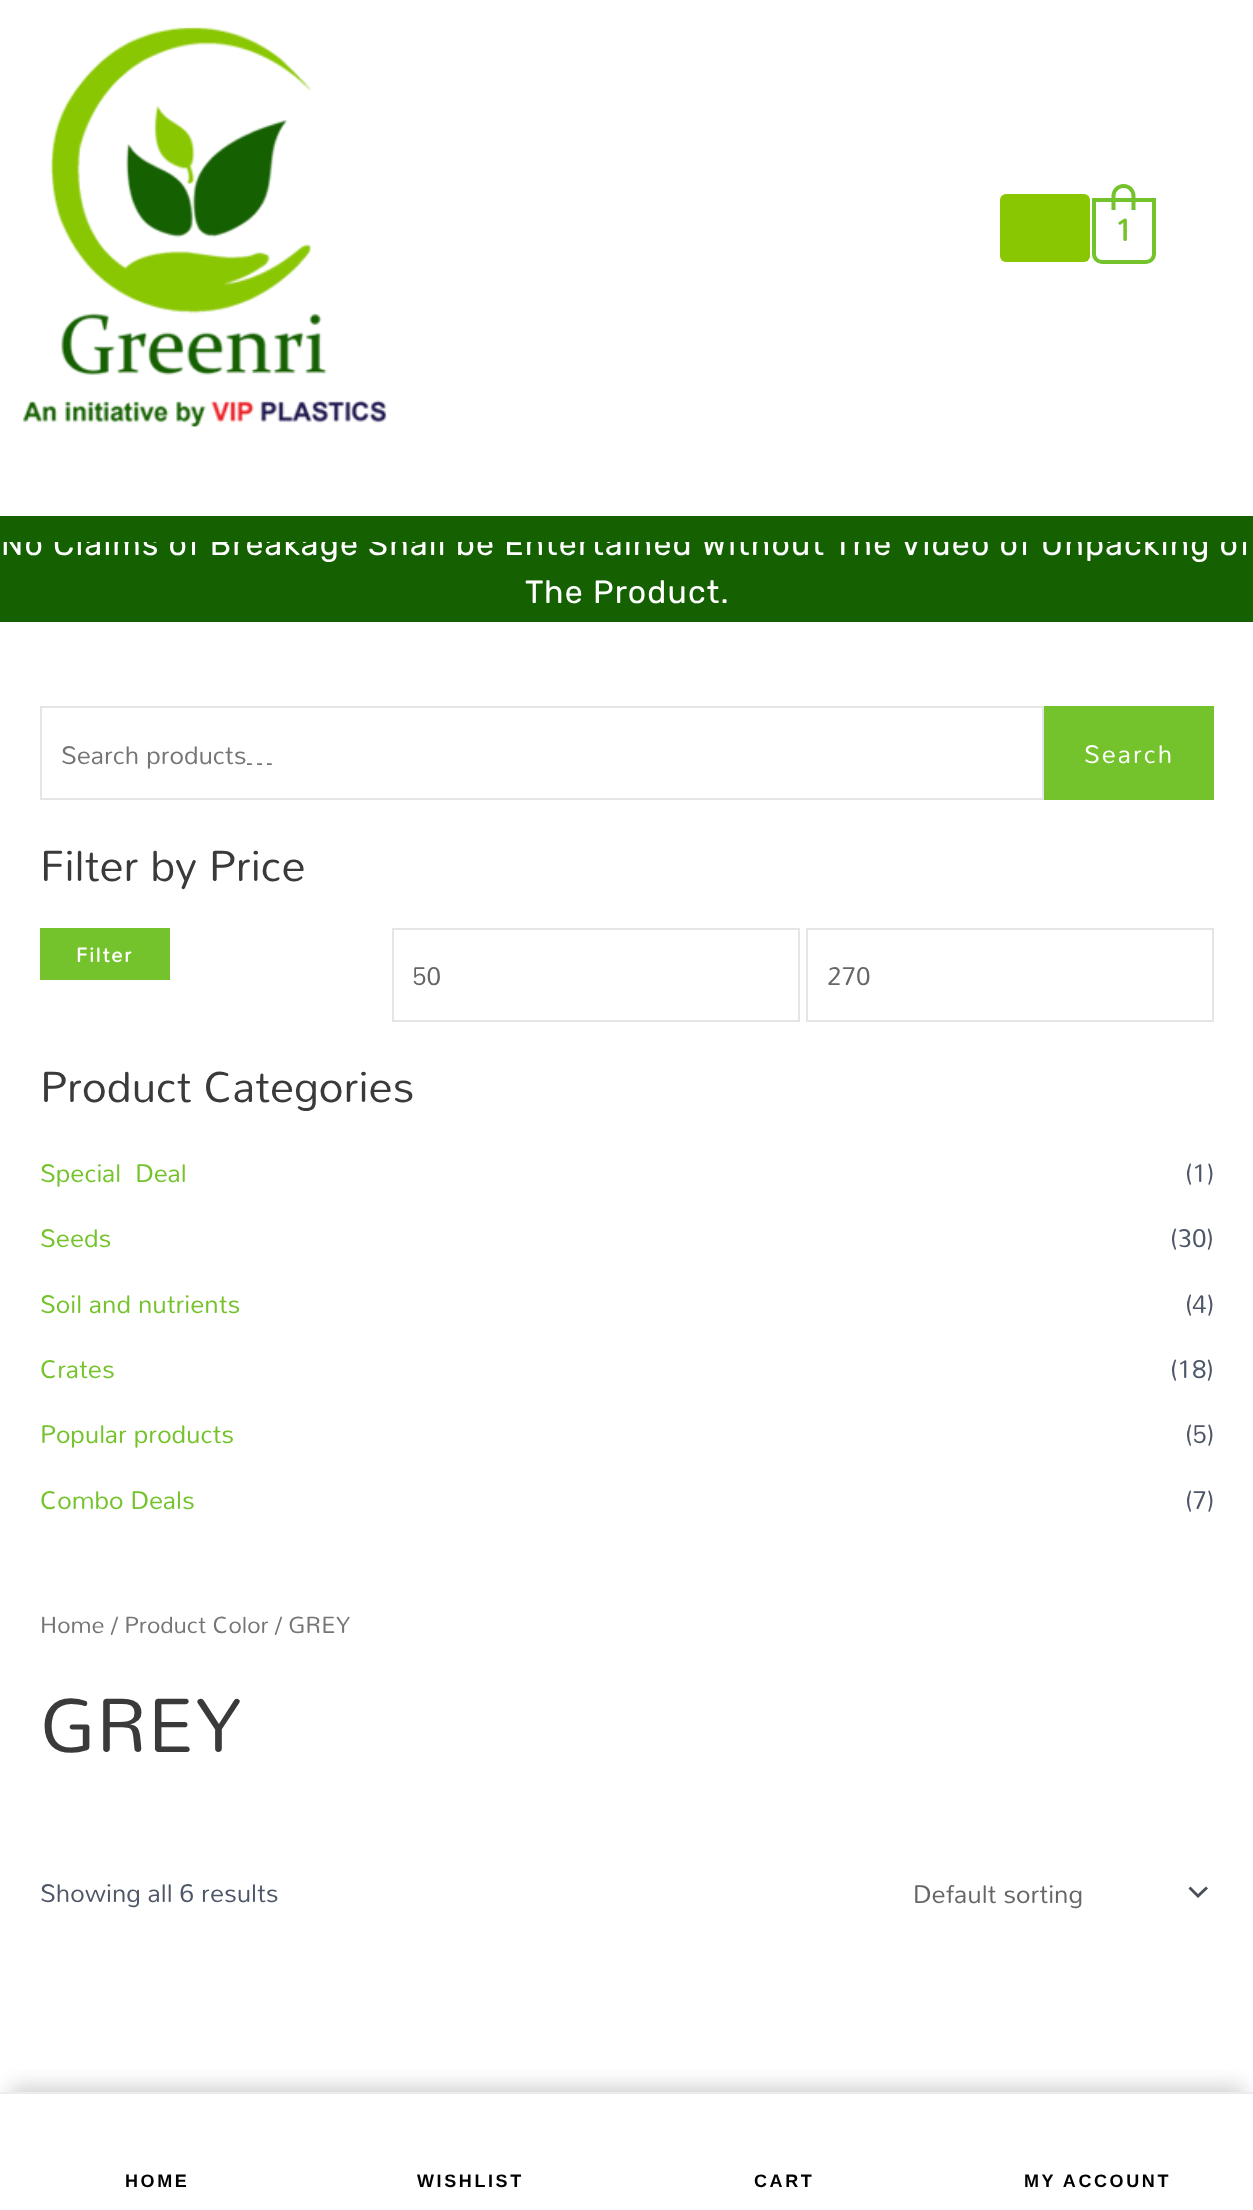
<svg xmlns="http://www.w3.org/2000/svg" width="1253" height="2210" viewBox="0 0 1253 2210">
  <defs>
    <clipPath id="clip1"><path d="M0 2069h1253v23H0z"/></clipPath>
    <clipPath id="clip2"><path d="M0 542h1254v116H0z"/></clipPath>
  </defs>
  <rect width="100%" height="100%" fill="#fff"/>
  <image x="23" y="27" width="364" height="400" href="img/1.png"/>
  <rect x="1000" y="194" width="90" height="68" rx="6" fill="#89c702"/>
  <path d="M1094 200H1154V254C1154 258.5 1150.5 262 1146 262H1102C1097.5 262 1094 258.5 1094 254Z" fill="none" stroke="#75c32c" stroke-width="4"/>
  <path d="M1123.5 184C1130.5 184 1135.5 189.5 1135.5 196V210H1111.5V196C1111.5 189.5 1117 184 1123.5 184ZM1123.5 188C1128 188 1131.5 191.5 1131.5 196V210H1115.5V196C1115.5 191.5 1119.5 188 1123.5 188Z" fill="#75c32c" fill-rule="evenodd"/>
  <path d="M0 516h1253v106H0z" fill="#156001"/>
  <path d="M41 707h1002v92H41z" fill="none" stroke="#e5e5e5" stroke-width="2"/>
  <path d="M1044 706h170v94H1044z" fill="#75c32c"/>
  <path d="M40 928h130v52H40z" fill="#75c32c"/>
  <path d="M393 929h406v92H393z" fill="none" stroke="#e5e5e5" stroke-width="2"/>
  <path d="M807 929h406v92H807z" fill="none" stroke="#e5e5e5" stroke-width="2"/>
  <path d="M1188.5 1888.5L1198 1898L1208 1888.5L1206 1886.5L1198 1894L1190.5 1886.5Z" fill="#4b4f58"/>
  <g clip-path="url(#clip1)">
    <path d="M10 2086h1234v98H10z" fill="#a3a3a380" filter="blur(10px)"/>
  </g>
  <path d="M0 2092h1253v2H0z" fill="#ececec"/>
  <text x="1115" y="241" font-family="Mandali" font-size="31" font-weight="bold" fill="#75c32c">1</text>
  <g clip-path="url(#clip2)">
    <text x="1" y="555" font-family="Rubik" font-size="32" letter-spacing="1.2" fill="#fff">No Claims of Breakage Shall be Entertained Without The Video of Unpacking of</text>
  </g>
  <text x="525" y="603" font-family="Rubik" font-size="32" letter-spacing="1.2" fill="#fff">The Product.</text>
  <text x="61" y="764" font-family="Mandali" font-size="25.5" fill="#757575">Search products…</text>
  <text x="1084" y="763" font-family="Mandali" font-size="25.5" letter-spacing="2" fill="#fff">Search</text>
  <text x="40" y="881" font-family="Mandali" font-size="43.5" fill="#3a3a3a">Filter by Price</text>
  <text x="76" y="962" font-family="Mandali" font-size="20" font-weight="bold" letter-spacing="2" fill="#fff">Filter</text>
  <g font-family="Mandali" font-size="25.5" fill="#666">
    <text x="412" y="985">50</text>
    <text x="827" y="985">270</text>
  </g>
  <text x="40" y="1102" font-family="Mandali" font-size="43.5" fill="#3a3a3a">Product Categories</text>
  <text x="40" y="1182" font-family="Mandali" font-size="25.5" fill="#75c32c" xml:space="preserve">Special  Deal</text>
  <text x="1185" y="1182" font-family="Mandali" font-size="25.5" fill="#4e5768">(1)</text>
  <text x="40" y="1247" font-family="Mandali" font-size="25.5" fill="#75c32c">Seeds</text>
  <text x="1170" y="1247" font-family="Mandali" font-size="25.5" fill="#4e5768">(30)</text>
  <text x="40" y="1313" font-family="Mandali" font-size="25.5" fill="#75c32c">Soil and nutrients</text>
  <text x="1185" y="1313" font-family="Mandali" font-size="25.5" fill="#4e5768">(4)</text>
  <text x="40" y="1378" font-family="Mandali" font-size="25.5" fill="#75c32c">Crates</text>
  <text x="1170" y="1378" font-family="Mandali" font-size="25.5" fill="#4e5768">(18)</text>
  <text x="40" y="1443" font-family="Mandali" font-size="25.5" fill="#75c32c">Popular products</text>
  <text x="1185" y="1443" font-family="Mandali" font-size="25.5" fill="#4e5768">(5)</text>
  <text x="40" y="1509" font-family="Mandali" font-size="25.5" fill="#75c32c">Combo Deals</text>
  <text x="1185" y="1509" font-family="Mandali" font-size="25.5" fill="#4e5768">(7)</text>
  <text x="40" y="1633" font-family="Mandali" font-size="23.5" fill="#757575">Home / Product Color / GREY</text>
  <text x="40" y="1752" font-family="Mandali" font-size="76.5" fill="#3a3a3a">GREY</text>
  <text x="40" y="1902" font-family="Mandali" font-size="25.5" fill="#4e5768">Showing all 6 results</text>
  <text x="913" y="1903" font-family="Mandali" font-size="25.5" fill="#666">Default sorting</text>
  <g font-family="Liberation Sans" font-size="18" font-weight="bold" letter-spacing="2.6" fill="#000">
    <text x="125" y="2187">HOME</text>
    <text x="417" y="2187">WISHLIST</text>
    <text x="754" y="2187">CART</text>
    <text x="1024" y="2187">MY ACCOUNT</text>
  </g>
</svg>
